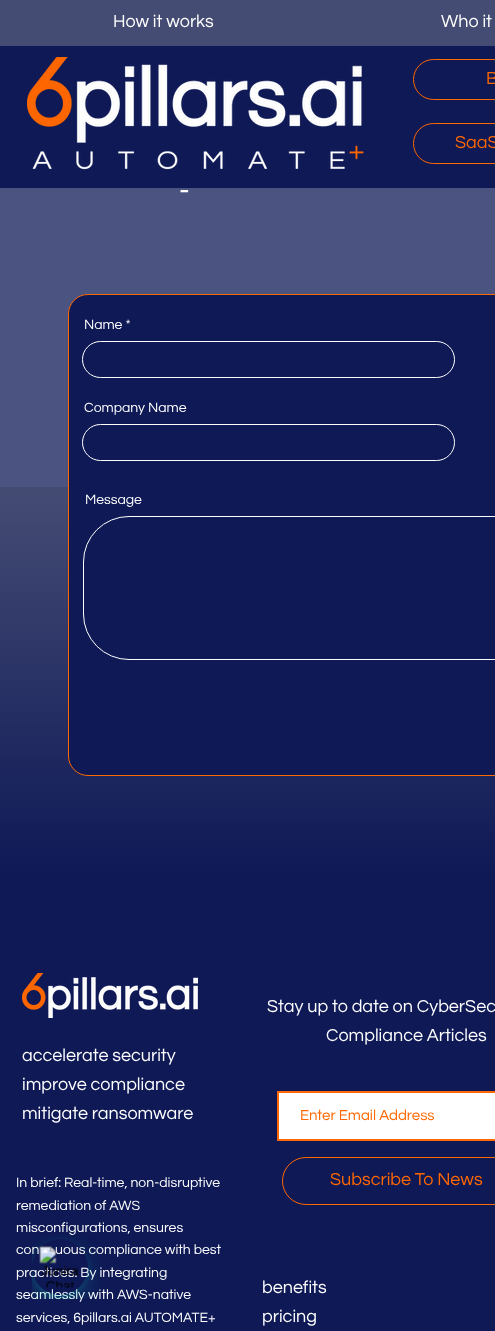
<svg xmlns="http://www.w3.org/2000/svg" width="495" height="1331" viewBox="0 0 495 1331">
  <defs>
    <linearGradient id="g1" gradientUnits="userSpaceOnUse" x1="490" y1="874" x2="490" y2="487"><stop offset="0" stop-color="#0e1956"/><stop offset="1" stop-color="#454c74"/></linearGradient>
  </defs>
  <rect width="100%" height="100%" fill="#4b5380"/>
  <path d="M0 0h495v46H0z" fill="#454c74"/>
  <path d="M0 46h495v142H0z" fill="#0e1956"/>
  <image x="27" y="57" width="337" height="113" href="img/1.png"/>
  <rect x="413.5" y="59.5" width="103" height="40" rx="20" fill="none" stroke="#ff6700"/>
  <rect x="413.5" y="123.5" width="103" height="40" rx="20" fill="none" stroke="#ff6700"/>
  <path d="M0 487h495v386H0z" fill="url(#g1)"/>
  <rect x="68.5" y="294.5" width="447" height="481" rx="19.5" fill="#0e1956" stroke="#ff6700"/>
  <rect x="82.5" y="341.5" width="372" height="36" rx="18" fill="none" stroke="#fff"/>
  <rect x="82.5" y="424.5" width="372" height="36" rx="18" fill="none" stroke="#fff"/>
  <rect x="83.5" y="516.5" width="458" height="143" rx="45.5" fill="none" stroke="#fff"/>
  <path d="M0 873h495v458H0z" fill="#0e1956"/>
  <image x="22" y="973" width="176" height="45" href="img/2.png"/>
  <path d="M278 1092h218v48H278z" fill="#fff" stroke="#ff6700" stroke-width="2"/>
  <rect x="282.5" y="1157.5" width="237" height="47" rx="23.5" fill="none" stroke="#ff6700"/>
  <g font-family="Questrial" font-size="18" fill="#fff">
    <text x="113" y="27">How it works</text>
    <text x="441" y="27">Who it</text>
  </g>
  <g font-family="Questrial" font-size="18" fill="#ff6700">
    <text x="486" y="84">B</text>
    <text x="455" y="148">SaaS</text>
  </g>
  <text x="179" y="200" font-family="Questrial" font-size="30" fill="#fff">-</text>
  <g font-family="Questrial" font-size="14" fill="#fff">
    <text x="84" y="329">Name *</text>
    <text x="84" y="412">Company Name</text>
    <text x="85" y="504">Message</text>
  </g>
  <g font-family="Questrial" font-size="18" fill="#fff">
    <text x="22" y="1061">accelerate security</text>
    <text x="22" y="1090">improve compliance</text>
    <text x="22" y="1119">mitigate ransomware</text>
  </g>
  <g font-family="Questrial" font-size="14" fill="#fff">
    <text x="16" y="1187">In brief: Real-time, non-disruptive</text>
    <text x="16" y="1210">remediation of AWS</text>
    <text x="16" y="1232">misconfigurations, ensures</text>
    <text x="16" y="1254">con</text>
    <text x="55" y="1254">uous compliance with best</text>
    <text x="16" y="1277">practices. By integrating</text>
    <text x="16" y="1299">seamlessly with AWS-native</text>
    <text x="16" y="1322">services, 6pillars.ai AUTOMATE+</text>
  </g>
  <g font-family="Questrial" font-size="18" fill="#fff">
    <text x="267" y="1012">Stay up to date on CyberSec</text>
    <text x="326" y="1041">Compliance Articles</text>
  </g>
  <text x="300" y="1120" font-family="Questrial" font-size="15" fill="#ff6700">Enter Email Address</text>
  <text x="330" y="1185" font-family="Questrial" font-size="18" fill="#ff6700">Subscribe To News</text>
  <g font-family="Questrial" font-size="18" fill="#fff">
    <text x="262" y="1293">benefits</text>
    <text x="262" y="1322">pricing</text>
  </g>
  <image x="32" y="1235" width="68" height="64" href="img/3.png"/>
</svg>
